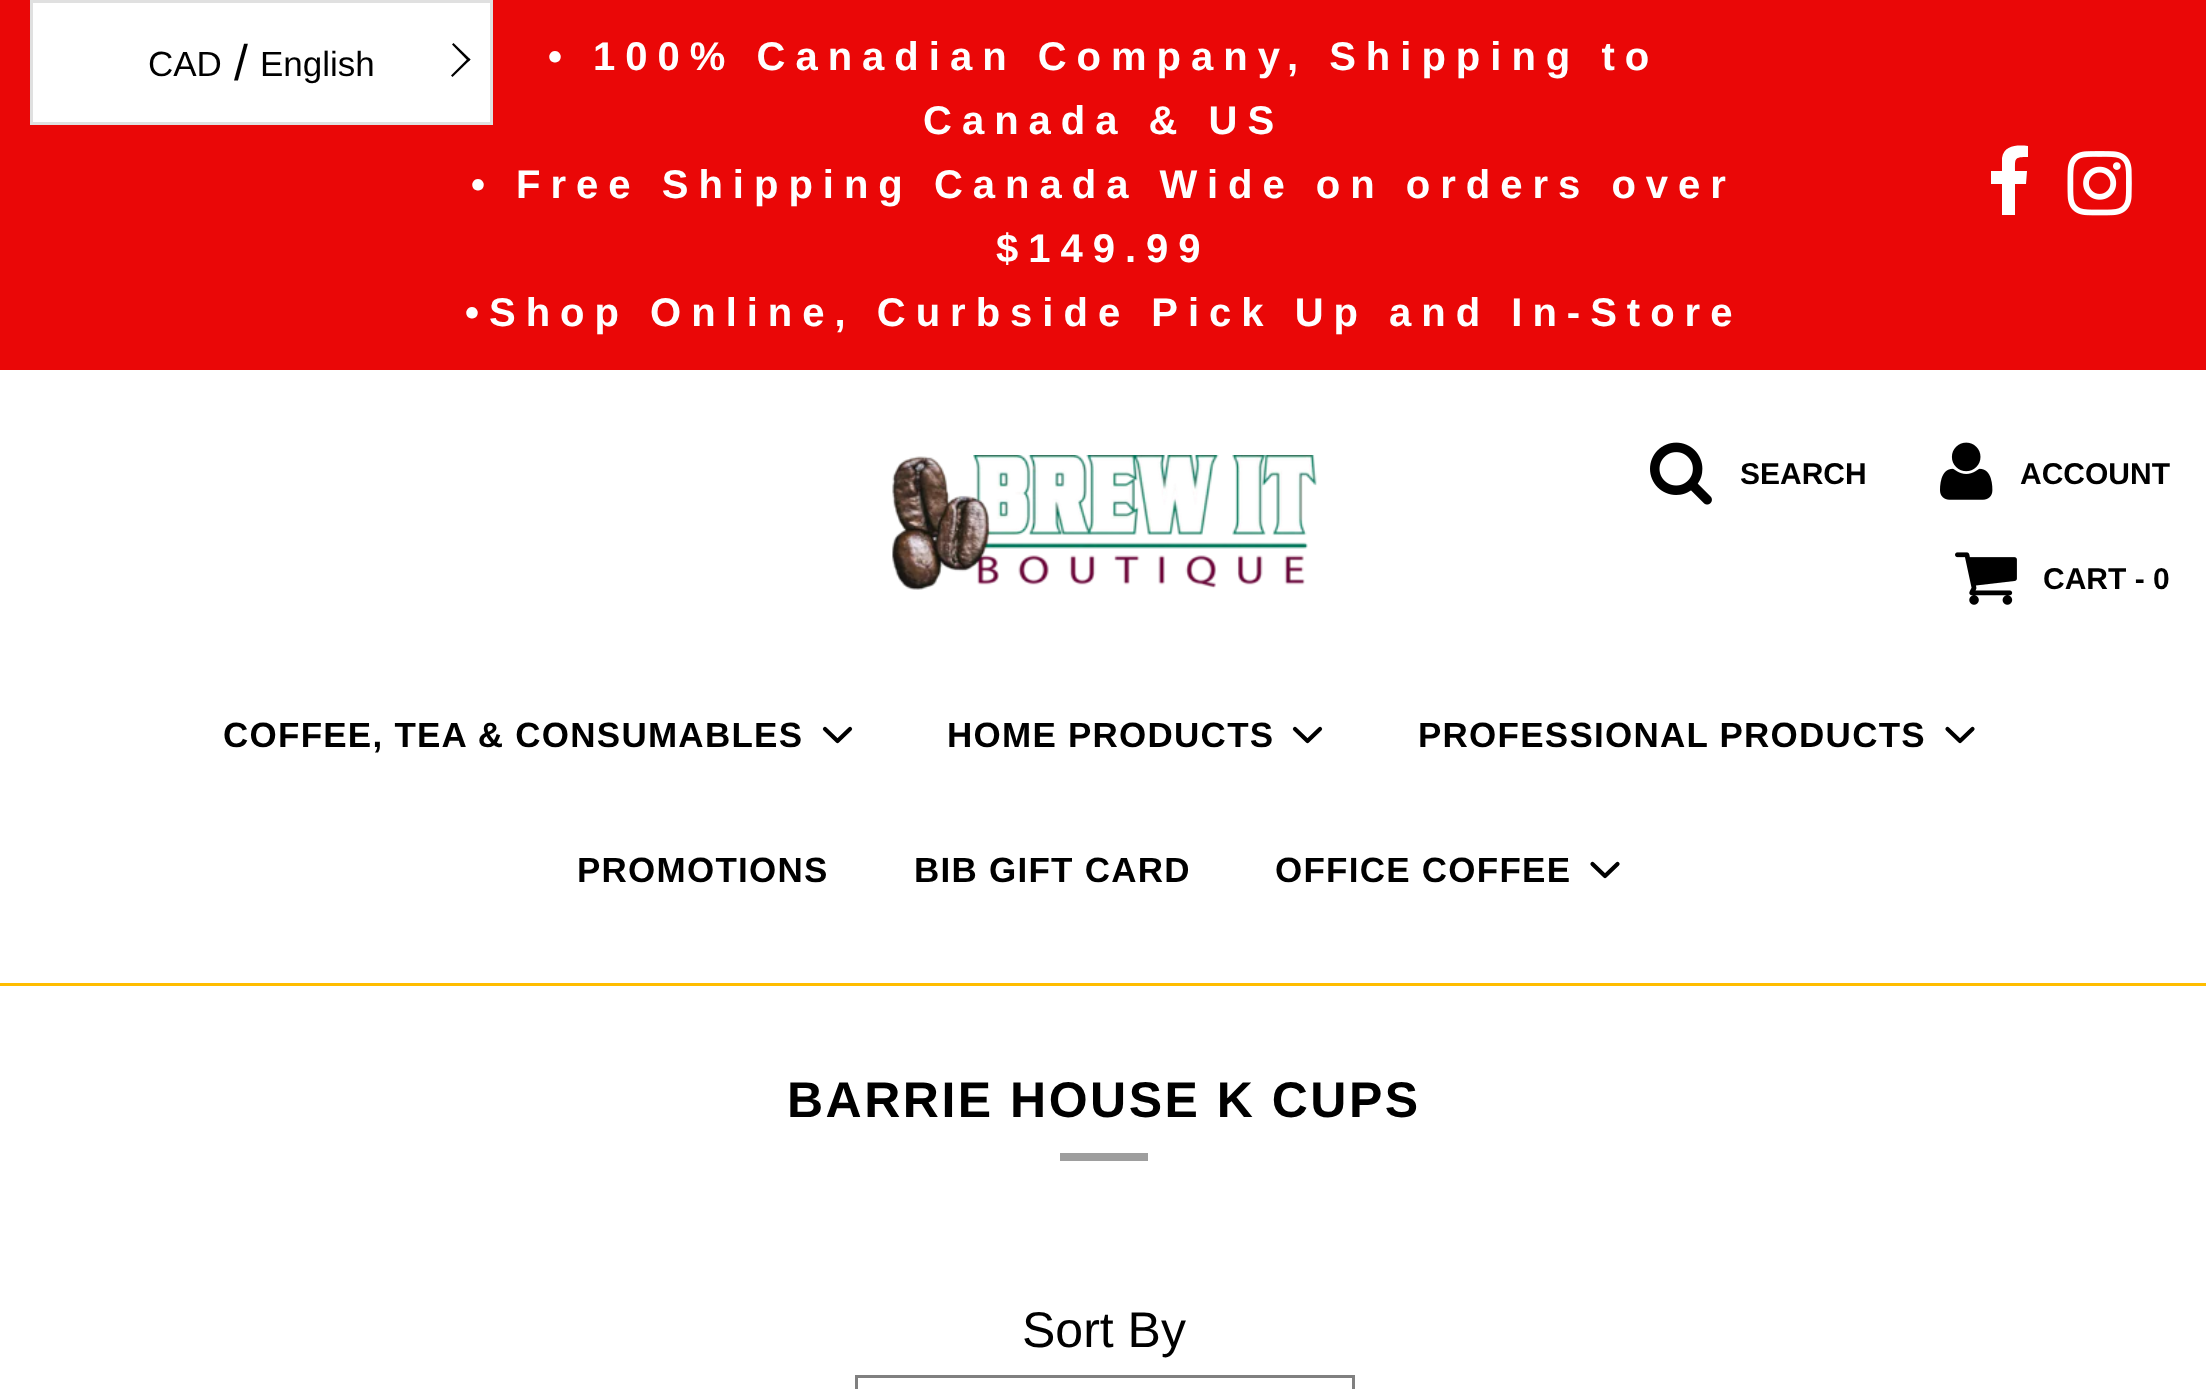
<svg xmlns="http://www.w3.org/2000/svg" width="2206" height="1389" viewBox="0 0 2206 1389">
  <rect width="100%" height="100%" fill="#fff"/>
  <path d="M0 0h2206v370H0z" fill="#ea0707"/>
  <path d="M2028 146V157C2014 157 2015 158 2015 171H2027L2026 184H2015V215H2002V184H1991V171H2002V158C2004 145 2017 145 2028 146Z" fill="#fff"/>
  <image x="2067" y="151" width="65" height="65" href="img/1.png"/>
  <path d="M0 983h2206v3H0z" fill="#ffbd00"/>
  <image x="892" y="455" width="425" height="135" href="img/2.png"/>
  <image x="1650" y="442" width="62" height="63" href="img/3.png"/>
  <image x="1940" y="442" width="53" height="58" href="img/4.png"/>
  <image x="1955" y="552" width="62" height="53" href="img/5.png"/>
  <path d="M825 729L837.5 741L850 729" fill="none" stroke="#000" stroke-width="4.2" stroke-linecap="round" stroke-linejoin="round"/>
  <path d="M1295 729L1307.5 741L1320 729" fill="none" stroke="#000" stroke-width="4.2" stroke-linecap="round" stroke-linejoin="round"/>
  <path d="M1947.5 729L1960 741L1972.5 729" fill="none" stroke="#000" stroke-width="4.2" stroke-linecap="round" stroke-linejoin="round"/>
  <path d="M1592.5 864L1605 876L1617.5 864" fill="none" stroke="#000" stroke-width="4.2" stroke-linecap="round" stroke-linejoin="round"/>
  <path d="M1060 1153h88v8H1060z" fill="#9e9e9e"/>
  <path d="M856.5 1376.5h497v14H856.5z" fill="none" stroke="#808080" stroke-width="3"/>
  <path d="M31.5 1.5h460v122H31.5z" fill="#fff" stroke="#e0e0e0" stroke-width="3"/>
  <path d="M453.5 43L470.5 59.5L468.5 61.5L452 44.5Z" fill="#000"/>
  <path d="M468.5 58L470.5 59.5L452.5 77L451 75.5Z" fill="#000"/>
  <g font-family="Arimo" font-size="40" font-weight="bold" letter-spacing="10" fill="#fff">
    <text x="548" y="70">• 100% Canadian Company, Shipping to</text>
    <text x="923" y="134">Canada &amp; US</text>
    <text x="471" y="198">• Free Shipping Canada Wide on orders over</text>
    <text x="996" y="262">$149.99</text>
    <text x="465" y="326">•Shop Online, Curbside Pick Up and In-Store</text>
  </g>
  <g font-family="Arimo" font-size="30" font-weight="bold" fill="#000">
    <text x="1740" y="484">SEARCH</text>
    <text x="2020" y="484">ACCOUNT</text>
    <text x="2043" y="589">CART - 0</text>
  </g>
  <g font-family="Arimo" font-size="35" font-weight="bold" letter-spacing="1.25" fill="#000">
    <text x="223" y="747">COFFEE, TEA &amp; CONSUMABLES</text>
    <text x="947" y="747">HOME PRODUCTS</text>
    <text x="1418" y="747">PROFESSIONAL PRODUCTS</text>
    <text x="577" y="882">PROMOTIONS</text>
    <text x="914" y="882">BIB GIFT CARD</text>
    <text x="1275" y="882">OFFICE COFFEE</text>
  </g>
  <text x="787" y="1117" font-family="Arimo" font-size="50" font-weight="bold" letter-spacing="2.5" fill="#000">BARRIE HOUSE K CUPS</text>
  <text x="1022" y="1347" font-family="Arimo" font-size="50" fill="#000">Sort By</text>
  <text x="148" y="76" font-family="Arimo" font-size="35" fill="#000">CAD</text>
  <text x="234" y="80" font-family="Arimo" font-size="50" fill="#000">/</text>
  <text x="260" y="76" font-family="Arimo" font-size="35" fill="#000">English</text>
</svg>
